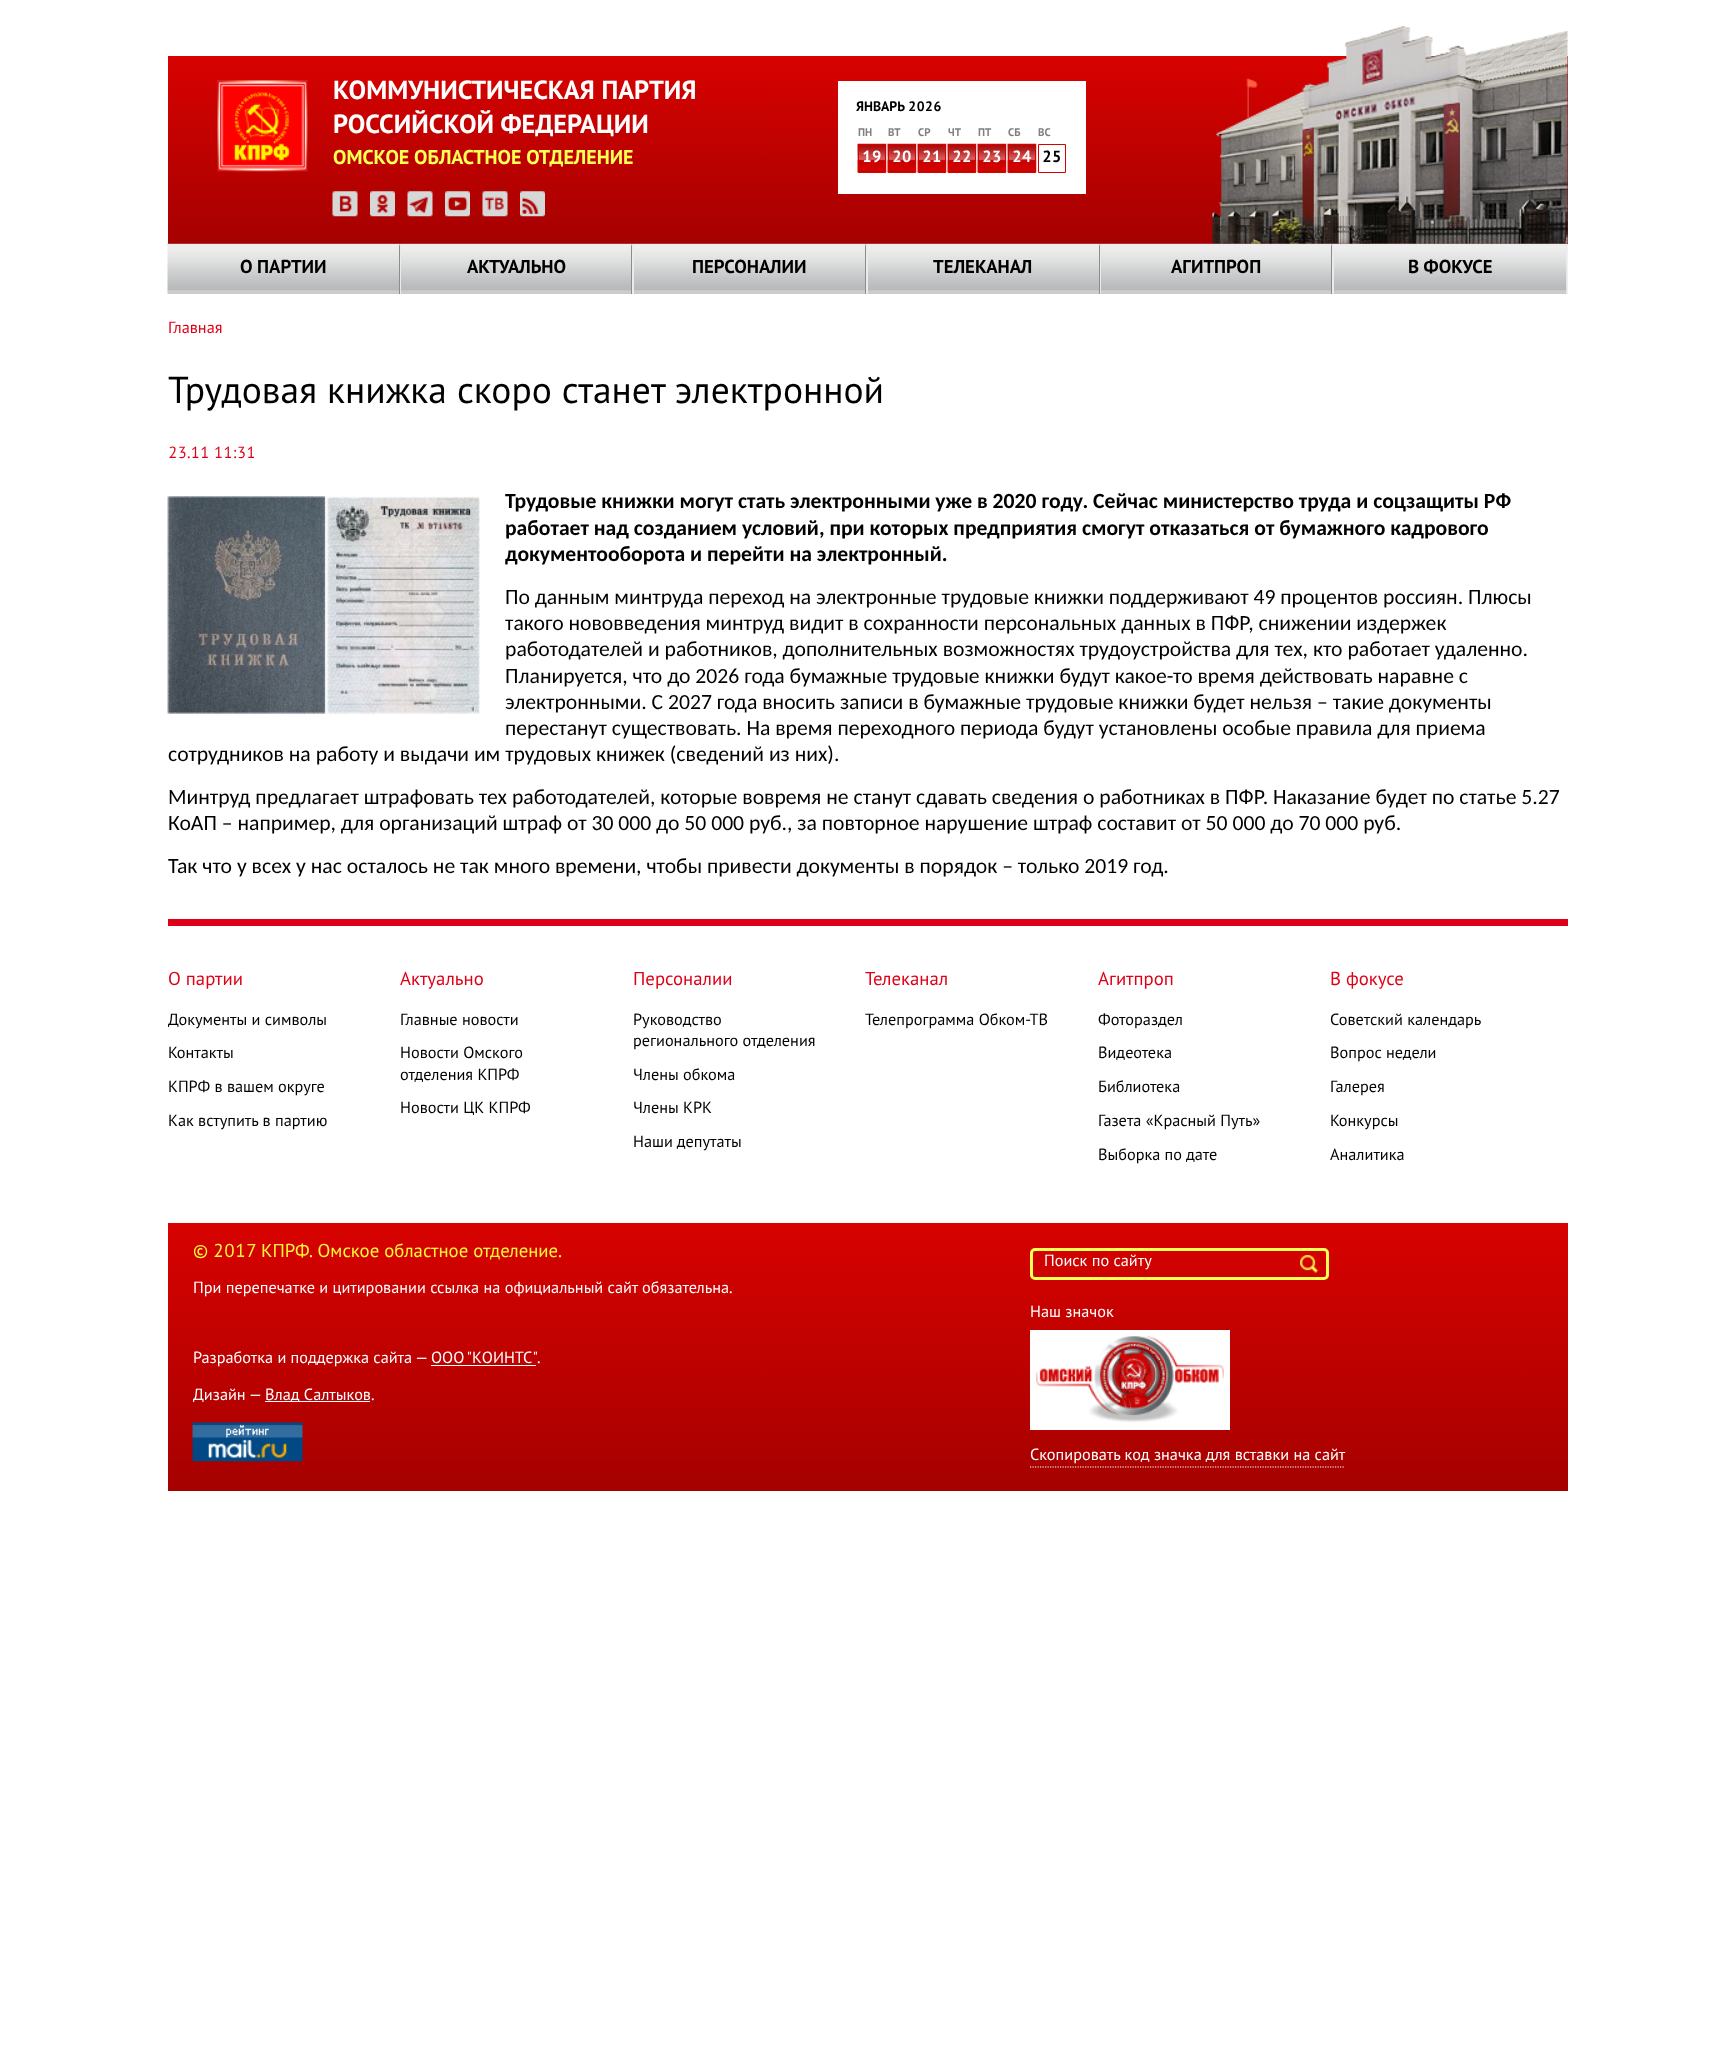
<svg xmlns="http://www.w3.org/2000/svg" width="1734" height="2063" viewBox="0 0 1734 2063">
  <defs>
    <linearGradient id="g1" gradientUnits="userSpaceOnUse" x1="868" y1="244" x2="868" y2="56"><stop offset="0" stop-color="#a50100"/><stop offset="1" stop-color="#d70200"/></linearGradient>
    <linearGradient id="g2" gradientUnits="userSpaceOnUse" x1="868" y1="1491" x2="868" y2="1223"><stop offset="0" stop-color="#a50100"/><stop offset="1" stop-color="#d70200"/></linearGradient>
  </defs>
  <rect width="100%" height="100%" fill="#fff"/>
  <path d="M168 56h1400v188H168z" fill="url(#g1)"/>
  <image x="217" y="80" width="91" height="92" href="img/1.png"/>
  <image x="332" y="191" width="26" height="26" href="img/2.png"/>
  <image x="370" y="191" width="25" height="26" href="img/3.png"/>
  <image x="407" y="191" width="26" height="26" href="img/4.png"/>
  <image x="445" y="191" width="25" height="26" href="img/5.png"/>
  <image x="482" y="191" width="26" height="26" href="img/6.png"/>
  <image x="520" y="191" width="25" height="26" href="img/7.png"/>
  <path d="M838 81h248v113H838z" fill="#fff"/>
  <image x="857" y="143" width="30" height="30" href="img/8.png"/>
  <path d="M858.5 144.5h27v28H858.5z" fill="none" stroke="#d60200"/>
  <image x="887" y="143" width="30" height="30" href="img/8.png"/>
  <path d="M888.5 144.5h27v28H888.5z" fill="none" stroke="#d60200"/>
  <image x="917" y="143" width="30" height="30" href="img/8.png"/>
  <path d="M918.5 144.5h27v28H918.5z" fill="none" stroke="#d60200"/>
  <image x="947" y="143" width="30" height="30" href="img/8.png"/>
  <path d="M948.5 144.5h27v28H948.5z" fill="none" stroke="#d60200"/>
  <image x="977" y="143" width="30" height="30" href="img/8.png"/>
  <path d="M978.5 144.5h27v28H978.5z" fill="none" stroke="#d60200"/>
  <image x="1007" y="143" width="30" height="30" href="img/8.png"/>
  <path d="M1008.5 144.5h27v28H1008.5z" fill="none" stroke="#d60200"/>
  <path d="M1038.5 144.5h27v28H1038.5z" fill="none" stroke="#d60200"/>
  <image x="1212" y="26" width="356" height="218" href="img/9.png"/>
  <path d="M168 244h1400v50H168z" fill="#efefef"/>
  <image x="167" y="243" width="233" height="51" href="img/10.png"/>
  <path d="M168 244H400L399 246H168Z" fill="#eee"/>
  <path d="M400 244V294H399V246Z" fill="#8c8c8c"/>
  <image x="400" y="243" width="233" height="51" href="img/11.png"/>
  <path d="M400 244H632L631 246H401Z" fill="#eee"/>
  <path d="M632 244V294H631V246Z" fill="#8c8c8c"/>
  <path d="M400 294V244L401 246V294Z" fill="#ebebeb"/>
  <image x="632" y="243" width="235" height="51" href="img/12.png"/>
  <path d="M632 244H866L865 246H634Z" fill="#eee"/>
  <path d="M866 244V294H865V246Z" fill="#8c8c8c"/>
  <path d="M632 294V244L634 246V294Z" fill="#ebebeb"/>
  <image x="866" y="243" width="234" height="51" href="img/13.png"/>
  <path d="M866 244H1100L1099 246H868Z" fill="#eee"/>
  <path d="M1100 244V294H1099V246Z" fill="#8c8c8c"/>
  <path d="M866 294V244L868 246V294Z" fill="#ebebeb"/>
  <image x="1100" y="243" width="233" height="51" href="img/14.png"/>
  <path d="M1100 244H1332L1331 246H1101Z" fill="#eee"/>
  <path d="M1332 244V294H1331V246Z" fill="#8c8c8c"/>
  <path d="M1100 294V244L1101 246V294Z" fill="#ebebeb"/>
  <image x="1332" y="243" width="235" height="51" href="img/15.png"/>
  <path d="M1332 244H1566V246H1334Z" fill="#eee"/>
  <path d="M1332 294V244L1334 246V294Z" fill="#ebebeb"/>
  <image x="167" y="496" width="313" height="219" href="img/16.png"/>
  <path d="M168 919h1400v7H168z" fill="#de0016"/>
  <path d="M168 1223h1400v268H168z" fill="url(#g2)"/>
  <path d="M431 1365h105v1H431z" fill="#fff"/>
  <path d="M265 1401h105v1H265z" fill="#fff"/>
  <image x="192" y="1422" width="111" height="40" href="img/17.png"/>
  <rect x="1031.5" y="1249.5" width="296" height="29" rx="3.5" fill="none" stroke="#ffff54" stroke-width="3"/>
  <image x="1300" y="1255" width="18" height="18" href="img/18.png"/>
  <image x="1030" y="1330" width="200" height="100" href="img/19.png"/>
  <path d="M1030 1467H1345" fill="none" stroke="#fff" stroke-width="1.2" stroke-dasharray="1.25 1.25"/>
  <g font-family="PT Sans" font-size="26.25" font-weight="bold" fill="#fff">
    <text x="333" y="99">КОММУНИСТИЧЕСКАЯ ПАРТИЯ</text>
    <text x="333" y="133">РОССИЙСКОЙ ФЕДЕРАЦИИ</text>
  </g>
  <text x="333" y="164" font-family="PT Sans" font-size="20" font-weight="bold" fill="#ffff54">ОМСКОЕ ОБЛАСТНОЕ ОТДЕЛЕНИЕ</text>
  <text x="856" y="111" font-family="PT Sans" font-size="13.75" font-weight="bold" fill="#000">ЯНВАРЬ 2026</text>
  <g font-family="PT Sans" font-size="11" font-weight="bold" fill="#808080">
    <text x="858" y="136">ПН</text>
    <text x="888" y="136">ВТ</text>
    <text x="918" y="136">СР</text>
    <text x="948" y="136">ЧТ</text>
    <text x="978" y="136">ПТ</text>
    <text x="1008" y="136">СБ</text>
    <text x="1038" y="136">ВС</text>
  </g>
  <g font-family="PT Sans" font-size="16.25" font-weight="bold" fill="#fff">
    <text x="862" y="162">19</text>
    <text x="892" y="162">20</text>
    <text x="922" y="162">21</text>
    <text x="952" y="162">22</text>
    <text x="982" y="162">23</text>
    <text x="1012" y="162">24</text>
  </g>
  <text x="1042" y="162" font-family="PT Sans" font-size="16.25" font-weight="bold" fill="#000">25</text>
  <g font-family="PT Sans" font-size="18.75" font-weight="bold" fill="#000">
    <text x="240" y="273">О ПАРТИИ</text>
    <text x="467" y="273">АКТУАЛЬНО</text>
    <text x="692" y="273">ПЕРСОНАЛИИ</text>
    <text x="933" y="273">ТЕЛЕКАНАЛ</text>
    <text x="1171" y="273">АГИТПРОП</text>
    <text x="1408" y="273">В ФОКУСЕ</text>
  </g>
  <text x="168" y="333" font-family="PT Sans" font-size="16.25" fill="#de0016">Главная</text>
  <text x="168" y="403" font-family="PT Sans" font-size="37.5" fill="#000">Трудовая книжка скоро станет электронной</text>
  <text x="168" y="458" font-family="PT Sans" font-size="16.25" fill="#de0016">23.11 11:31</text>
  <g font-family="Carlito" font-size="21.67" font-weight="bold" fill="#000">
    <text x="505" y="508">Трудовые книжки могут стать электронными уже в 2020 году. Сейчас министерство труда и соцзащиты РФ</text>
    <text x="505" y="535">работает над созданием условий, при которых предприятия смогут отказаться от бумажного кадрового</text>
    <text x="505" y="561">документооборота и перейти на электронный.</text>
  </g>
  <g font-family="Carlito" font-size="21.67" fill="#000">
    <text x="505" y="604">По данным минтруда переход на электронные трудовые книжки поддерживают 49 процентов россиян. Плюсы</text>
    <text x="505" y="630">такого нововведения минтруд видит в сохранности персональных данных в ПФР, снижении издержек</text>
    <text x="505" y="656">работодателей и работников, дополнительных возможностях трудоустройства для тех, кто работает удаленно.</text>
    <text x="505" y="683">Планируется, что до 2026 года бумажные трудовые книжки будут какое-то время действовать наравне с</text>
    <text x="505" y="709">электронными. С 2027 года вносить записи в бумажные трудовые книжки будет нельзя – такие документы</text>
    <text x="505" y="735">перестанут существовать. На время переходного периода будут установлены особые правила для приема</text>
    <text x="168" y="761">сотрудников на работу и выдачи им трудовых книжек (сведений из них).</text>
    <text x="168" y="804">Минтруд предлагает штрафовать тех работодателей, которые вовремя не станут сдавать сведения о работниках в ПФР. Наказание будет по статье 5.27</text>
    <text x="168" y="830">КоАП – например, для организаций штраф от 30 000 до 50 000 руб., за повторное нарушение штраф составит от 50 000 до 70 000 руб.</text>
    <text x="168" y="873">Так что у всех у нас осталось не так много времени, чтобы привести документы в порядок – только 2019 год.</text>
  </g>
  <text x="168" y="985" font-family="PT Sans" font-size="18.75" fill="#de0016">О партии</text>
  <g font-family="PT Sans" font-size="16.25" fill="#000">
    <text x="168" y="1025">Документы и символы</text>
    <text x="168" y="1058">Контакты</text>
    <text x="168" y="1092">КПРФ в вашем округе</text>
    <text x="168" y="1126">Как вступить в партию</text>
  </g>
  <text x="400" y="985" font-family="PT Sans" font-size="18.75" fill="#de0016">Актуально</text>
  <g font-family="PT Sans" font-size="16.25" fill="#000">
    <text x="400" y="1025">Главные новости</text>
    <text x="400" y="1058">Новости Омского</text>
    <text x="400" y="1080">отделения КПРФ</text>
    <text x="400" y="1113">Новости ЦК КПРФ</text>
  </g>
  <text x="633" y="985" font-family="PT Sans" font-size="18.75" fill="#de0016">Персоналии</text>
  <g font-family="PT Sans" font-size="16.25" fill="#000">
    <text x="633" y="1025">Руководство</text>
    <text x="633" y="1046">регионального отделения</text>
    <text x="633" y="1080">Члены обкома</text>
    <text x="633" y="1113">Члены КРК</text>
    <text x="633" y="1147">Наши депутаты</text>
  </g>
  <text x="865" y="985" font-family="PT Sans" font-size="18.75" fill="#de0016">Телеканал</text>
  <text x="865" y="1025" font-family="PT Sans" font-size="16.25" fill="#000">Телепрограмма Обком-ТВ</text>
  <text x="1098" y="985" font-family="PT Sans" font-size="18.75" fill="#de0016">Агитпроп</text>
  <g font-family="PT Sans" font-size="16.25" fill="#000">
    <text x="1098" y="1025">Фотораздел</text>
    <text x="1098" y="1058">Видеотека</text>
    <text x="1098" y="1092">Библиотека</text>
    <text x="1098" y="1126">Газета «Красный Путь»</text>
    <text x="1098" y="1160">Выборка по дате</text>
  </g>
  <text x="1330" y="985" font-family="PT Sans" font-size="18.75" fill="#de0016">В фокусе</text>
  <g font-family="PT Sans" font-size="16.25" fill="#000">
    <text x="1330" y="1025">Советский календарь</text>
    <text x="1330" y="1058">Вопрос недели</text>
    <text x="1330" y="1092">Галерея</text>
    <text x="1330" y="1126">Конкурсы</text>
    <text x="1330" y="1160">Аналитика</text>
  </g>
  <text x="193" y="1257" font-family="PT Sans" font-size="18.75" fill="#fff83a">© 2017 КПРФ. Омское областное отделение.</text>
  <g font-family="PT Sans" font-size="16.25" fill="#fff">
    <text x="193" y="1293">При перепечатке и цитировании ссылка на официальный сайт обязательна.</text>
    <text x="193" y="1363">Разработка и поддержка сайта —</text>
    <text x="431" y="1363" word-spacing="-1">ООО "КОИНТС"</text>
    <text x="537" y="1363">.</text>
    <text x="193" y="1400">Дизайн —</text>
    <text x="265" y="1400">Влад Салтыков.</text>
    <text x="1044" y="1266">Поиск по сайту</text>
    <text x="1030" y="1317">Наш значок</text>
    <text x="1030" y="1460">Скопировать код значка для вставки на сайт</text>
  </g>
</svg>
